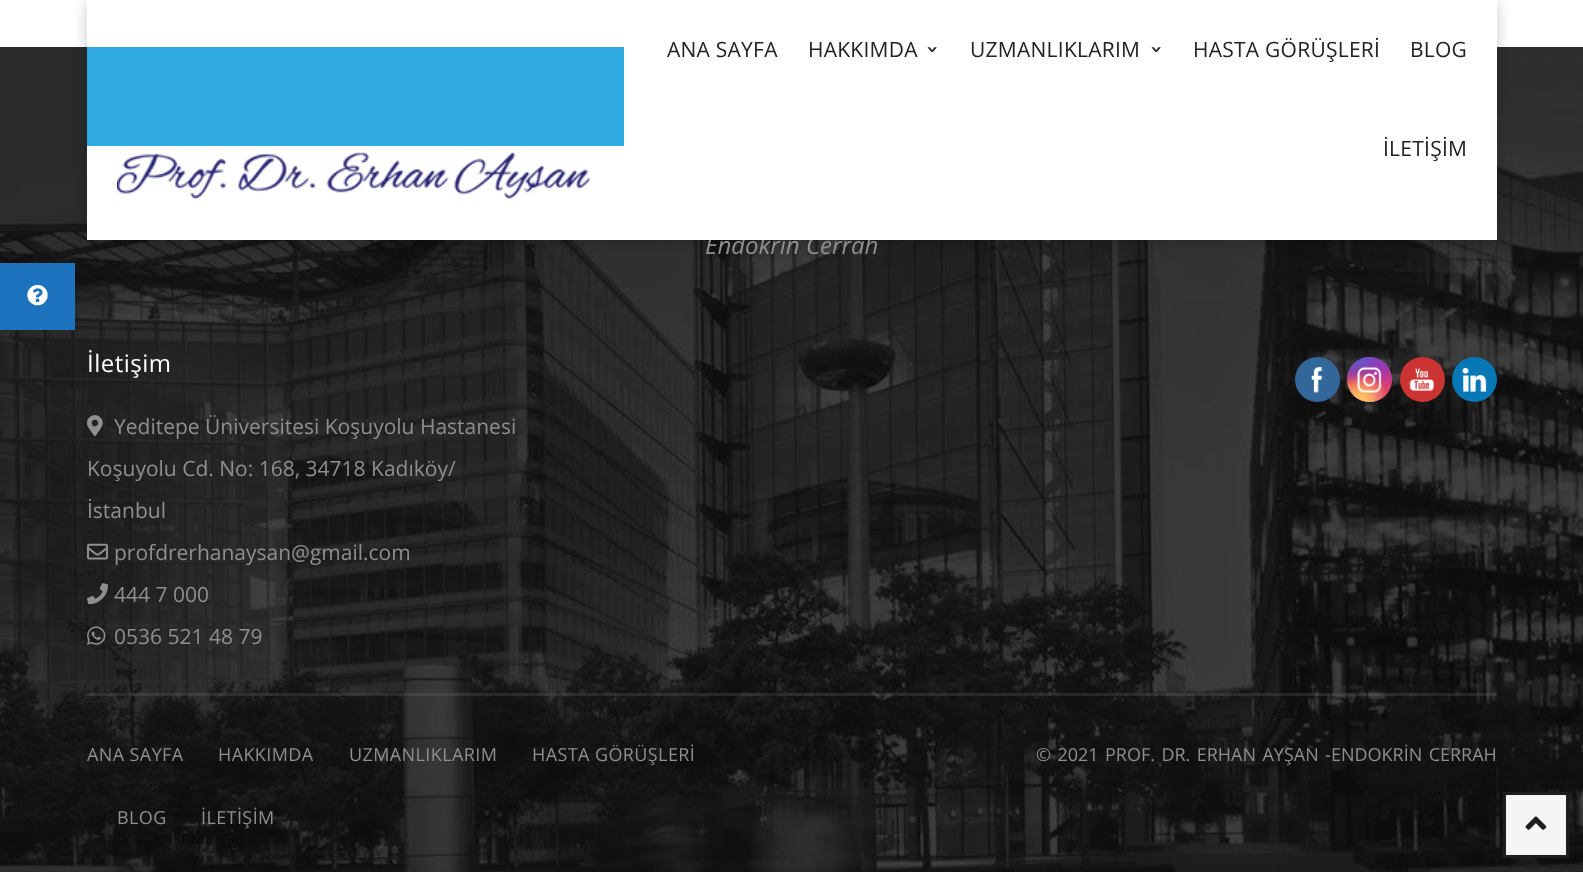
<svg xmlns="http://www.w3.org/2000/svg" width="1583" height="872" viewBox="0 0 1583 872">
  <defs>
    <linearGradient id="g1" gradientUnits="userSpaceOnUse" x1="1370" y1="357" x2="1370" y2="402"><stop offset="0" stop-color="#6559ca"/><stop offset="0.3" stop-color="#bc318f"/><stop offset="0.5" stop-color="#e33f5f"/><stop offset="0.7" stop-color="#f77638"/><stop offset="1" stop-color="#fec66d"/></linearGradient>
    <radialGradient id="g2" gradientUnits="userSpaceOnUse" cx="1392" cy="402" r="64"><stop offset="0" stop-color="#d9317a"/><stop offset="1" stop-color="#d9317a" stop-opacity="0"/></radialGradient>
    <radialGradient id="g3" gradientUnits="userSpaceOnUse" cx="0" cy="0" r="1" gradientTransform="matrix(38 0 0 76 1374 348)"><stop offset="0" stop-color="#893dc2"/><stop offset="0.5" stop-color="#893dc2" stop-opacity="0"/></radialGradient>
    <radialGradient id="g4" gradientUnits="userSpaceOnUse" cx="1392" cy="357" r="64"><stop offset="0" stop-color="#893dc2"/><stop offset="0.5" stop-color="#893dc2" stop-opacity="0"/></radialGradient>
    <radialGradient id="g5" gradientUnits="userSpaceOnUse" cx="0" cy="0" r="1" gradientTransform="matrix(51 0 0 95 1356 335)"><stop offset="0" stop-color="#5258cf"/><stop offset="0.5" stop-color="#5258cf" stop-opacity="0"/></radialGradient>
    <radialGradient id="g6" gradientUnits="userSpaceOnUse" cx="0" cy="0" r="1" gradientTransform="matrix(64 0 0 80 1347 346)"><stop offset="0" stop-color="#5258cf"/><stop offset="0.5" stop-color="#5258cf" stop-opacity="0"/></radialGradient>
    <radialGradient id="g7" gradientUnits="userSpaceOnUse" cx="1347" cy="420" r="77"><stop offset="0" stop-color="#fec564"/><stop offset="0.5" stop-color="#fec564" stop-opacity="0"/></radialGradient>
    <radialGradient id="g8" gradientUnits="userSpaceOnUse" cx="1363" cy="398" r="50"><stop offset="0" stop-color="#fec564"/><stop offset="0.5" stop-color="#fec564" stop-opacity="0"/></radialGradient>
  </defs>
  <rect width="100%" height="100%" fill="#fff"/>
  <image x="0" y="47" width="1583" height="825" href="img/3.png"/>
  <path d="M0 263h75v67H0z" fill="#1e73be"/>
  <image x="27" y="285" width="21" height="21" href="img/1.png"/>
  <path d="M87 2h1410v240H87z" fill="#00000033" filter="blur(7.5px)"/>
  <image x="87" y="415" width="16" height="22" href="img/4.png"/>
  <image x="87" y="543" width="21" height="17" href="img/5.png"/>
  <image x="87" y="583" width="21" height="22" href="img/6.png"/>
  <image x="87" y="626" width="19" height="19" href="img/7.png"/>
  <circle cx="1317.5" cy="379.5" r="22.5" fill="#369"/>
  <image x="1311" y="367" width="12" height="26" href="img/8.png"/>
  <circle cx="1369.5" cy="379.5" r="22.5" fill="url(#g1)"/>
  <circle cx="1369.5" cy="379.5" r="22.5" fill="url(#g2)"/>
  <circle cx="1369.5" cy="379.5" r="22.5" fill="url(#g3)"/>
  <circle cx="1369.5" cy="379.5" r="22.5" fill="url(#g4)"/>
  <circle cx="1369.5" cy="379.5" r="22.5" fill="url(#g5)"/>
  <circle cx="1369.5" cy="379.5" r="22.5" fill="url(#g6)"/>
  <circle cx="1369.5" cy="379.5" r="22.5" fill="url(#g7)"/>
  <circle cx="1369.5" cy="379.5" r="22.5" fill="url(#g8)"/>
  <image x="1357" y="367" width="25" height="26" href="img/9.png"/>
  <circle cx="1422.5" cy="379.5" r="22.5" fill="#c33"/>
  <image x="1409" y="368" width="25" height="23" href="img/10.png"/>
  <circle cx="1474.5" cy="379.5" r="22.5" fill="#0877b5"/>
  <image x="1462" y="367" width="25" height="25" href="img/11.png"/>
  <path d="M87 693h1410v3H87z" fill="#80808033"/>
  <path d="M1504.5 793.5h63v63H1504.5z" fill="#f5f5f5" stroke="#1e1e1e" stroke-width="3"/>
  <image x="1525" y="816" width="22" height="14" href="img/12.png"/>
  <text x="705" y="254" font-family="Open Sans" font-size="24" font-style="italic" fill="#8f8f8f">Endokrin Cerrah</text>
  <path d="M87 0h1410v240H87z" fill="#fff"/>
  <g font-family="Open Sans" font-size="21" letter-spacing="0.25" fill="#222">
    <text x="1383" y="156">İLETİŞİM</text>
    <text x="1410" y="57">BLOG</text>
    <text x="1193" y="57">HASTA GÖRÜŞLERİ</text>
  </g>
  <text x="1150" y="43" transform="rotate(90 1150 43)" font-family="DejaVu Sans Mono" font-size="21" font-weight="bold" letter-spacing="0.25" fill="#222">›</text>
  <text x="970" y="57" font-family="Open Sans" font-size="21" letter-spacing="0.25" fill="#222">UZMANLIKLARIM</text>
  <text x="926" y="43" transform="rotate(90 926 43)" font-family="DejaVu Sans Mono" font-size="21" font-weight="bold" letter-spacing="0.25" fill="#222">›</text>
  <g font-family="Open Sans" font-size="21" letter-spacing="0.25" fill="#222">
    <text x="808" y="57">HAKKIMDA</text>
    <text x="667" y="57">ANA SAYFA</text>
  </g>
  <image x="117" y="152" width="473" height="47" href="img/2.png"/>
  <path d="M87 47h537v99H87z" fill="#30abe2"/>
  <text x="87" y="372" font-family="Open Sans" font-size="24" letter-spacing="0.5" fill="#fff">İletişim</text>
  <g font-family="Open Sans" font-size="21" fill="#8f8f8f">
    <text x="114" y="434">Yeditepe Üniversitesi Koşuyolu Hastanesi</text>
    <text x="87" y="476">Koşuyolu Cd. No: 168, 34718 Kadıköy/</text>
    <text x="87" y="518">İstanbul</text>
    <text x="114" y="560">profdrerhanaysan@gmail.com</text>
    <text x="114" y="602">444 7 000</text>
    <text x="114" y="644">0536 521 48 79</text>
  </g>
  <g font-family="Open Sans" font-size="18" letter-spacing="0.4" fill="#8f8f8f">
    <text x="87" y="761">ANA SAYFA</text>
    <text x="218" y="761">HAKKIMDA</text>
    <text x="349" y="761">UZMANLIKLARIM</text>
    <text x="532" y="761">HASTA GÖRÜŞLERİ</text>
    <text x="117" y="824">BLOG</text>
    <text x="201" y="824">İLETİŞİM</text>
  </g>
  <text x="1036" y="761" word-spacing="1.75" font-family="Open Sans" font-size="18" fill="#8f8f8f">© 2021 PROF. DR. ERHAN AYŞAN -ENDOKRİN CERRAH</text>
</svg>
